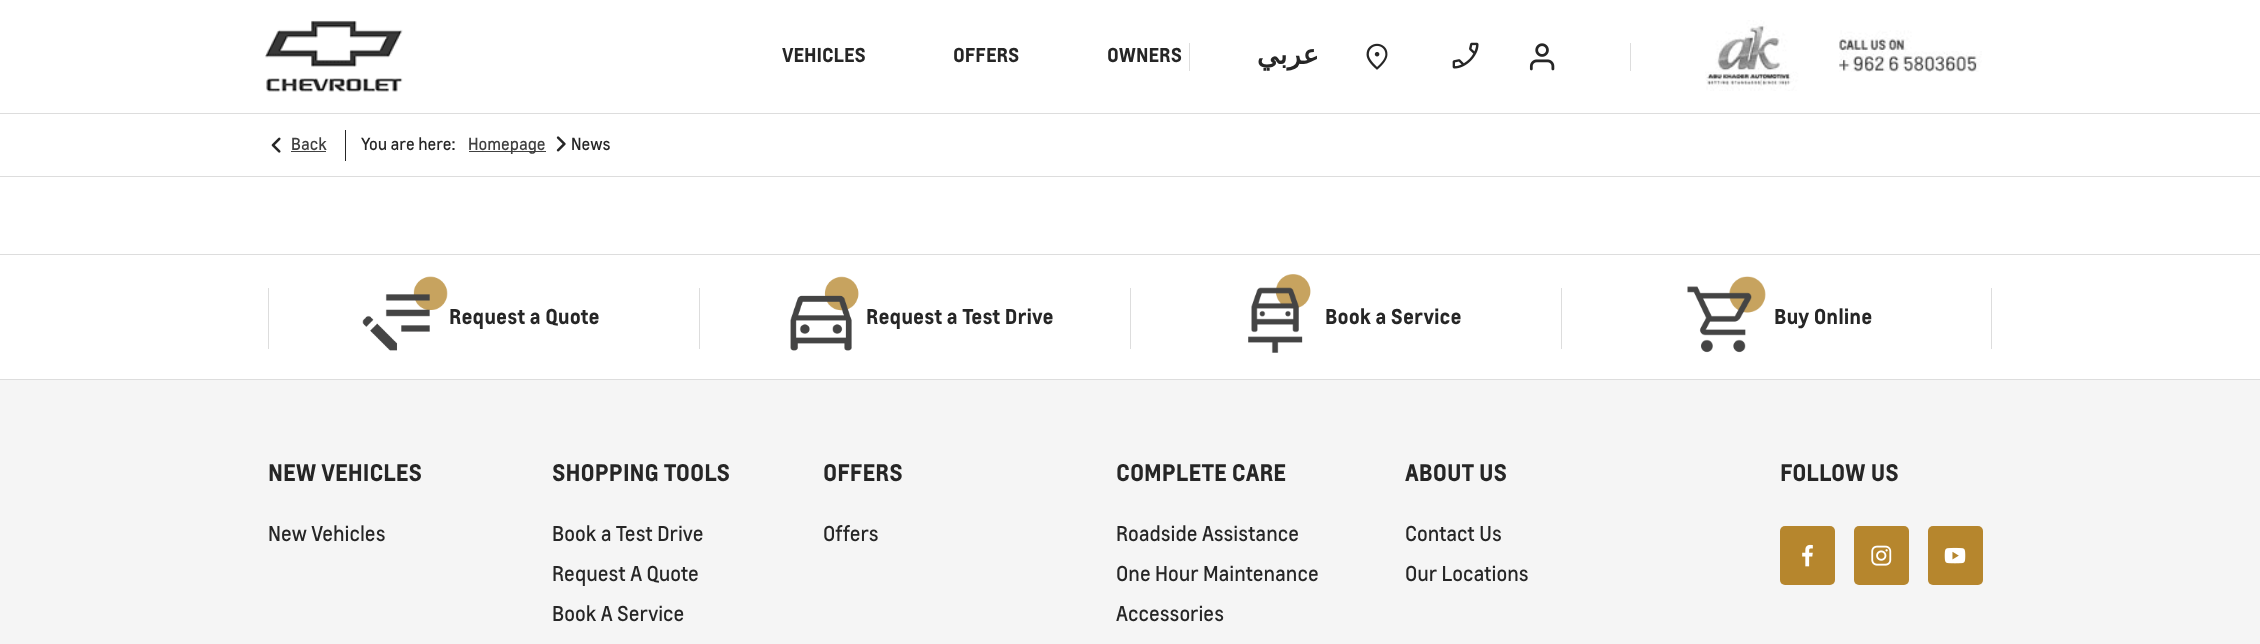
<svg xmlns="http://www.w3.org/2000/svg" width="2260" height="644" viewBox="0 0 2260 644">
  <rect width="100%" height="100%" fill="#fff"/>
  <image x="265" y="20" width="138" height="72" href="img/1.png"/>
  <path d="M1189 43h1v28H1189z" fill="#ddd"/>
  <image x="1366" y="43" width="22" height="27" href="img/2.png"/>
  <image x="1452" y="42" width="27" height="27" href="img/3.png"/>
  <image x="1529" y="43" width="26" height="28" href="img/4.png"/>
  <path d="M1630 43h1v28H1630z" fill="#ddd"/>
  <image x="1705" y="20" width="277" height="71" href="img/5.png"/>
  <path d="M0 113h2260v1H0z" fill="#ddd"/>
  <path d="M0 176h2260v1H0z" fill="#ddd"/>
  <image x="271" y="137" width="10" height="16" href="img/6.png"/>
  <path d="M291 151h35v1H291z" fill="#404040"/>
  <path d="M345 130h1v31H345z" fill="#262626"/>
  <path d="M469 151h77v1H469z" fill="#404040"/>
  <image x="556" y="136" width="10" height="16" href="img/7.png"/>
  <path d="M0 380h2260v264H0z" fill="#f5f5f5"/>
  <path d="M0 254h2260v1H0z" fill="#ddd"/>
  <path d="M0 379h2260v1H0z" fill="#ddd"/>
  <path d="M268 288h1v61H268z" fill="#ddd"/>
  <image x="362" y="276" width="86" height="75" href="img/8.png"/>
  <path d="M699 288h1v61H699z" fill="#ddd"/>
  <image x="790" y="276" width="69" height="75" href="img/9.png"/>
  <path d="M1130 288h1v61H1130z" fill="#ddd"/>
  <image x="1248" y="274" width="63" height="79" href="img/10.png"/>
  <path d="M1561 288h1v61H1561z" fill="#ddd"/>
  <image x="1687" y="276" width="79" height="77" href="img/11.png"/>
  <path d="M1991 288h1v61H1991z" fill="#ddd"/>
  <rect x="1780" y="526" width="55" height="59" rx="5" fill="#b6862d"/>
  <image x="1802" y="544" width="11" height="23" href="img/12.png"/>
  <rect x="1854" y="526" width="55" height="59" rx="5" fill="#b6862d"/>
  <image x="1871" y="545" width="21" height="21" href="img/13.png"/>
  <rect x="1928" y="526" width="55" height="59" rx="5" fill="#b6862d"/>
  <image x="1944" y="547" width="22" height="17" href="img/14.png"/>
  <g font-family="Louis" font-size="18.75" font-weight="bold" fill="#262626">
    <text x="782" y="62">VEHICLES</text>
    <text x="953" y="62">OFFERS</text>
    <text x="1107" y="62">OWNERS</text>
  </g>
  <text x="1319" y="64" font-family="DejaVu Sans" font-size="27.5" font-weight="bold" direction="rtl" fill="#262626">عربي</text>
  <text x="291" y="150" font-family="Louis" font-size="16.25" fill="#404040">Back</text>
  <text x="361" y="150" font-family="Louis" font-size="16.25" fill="#262626">You are here:</text>
  <text x="468" y="150" font-family="Louis" font-size="16.25" fill="#404040">Homepage</text>
  <text x="571" y="150" font-family="Louis" font-size="16.25" fill="#262626">News</text>
  <g font-family="Louis" font-size="20" font-weight="bold" fill="#262626">
    <text x="449" y="324">Request a Quote</text>
    <text x="866" y="324">Request a Test Drive</text>
    <text x="1325" y="324">Book a Service</text>
    <text x="1774" y="324">Buy Online</text>
  </g>
  <text x="268" y="481" font-family="Louis" font-size="22.5" font-weight="bold" fill="#262626">NEW VEHICLES</text>
  <text x="268" y="541" font-family="Louis" font-size="20" fill="#262626">New Vehicles</text>
  <text x="552" y="481" font-family="Louis" font-size="22.5" font-weight="bold" fill="#262626">SHOPPING TOOLS</text>
  <g font-family="Louis" font-size="20" fill="#262626">
    <text x="552" y="541">Book a Test Drive</text>
    <text x="552" y="581">Request A Quote</text>
    <text x="552" y="621">Book A Service</text>
  </g>
  <text x="823" y="481" font-family="Louis" font-size="22.5" font-weight="bold" fill="#262626">OFFERS</text>
  <text x="823" y="541" font-family="Louis" font-size="20" fill="#262626">Offers</text>
  <text x="1116" y="481" font-family="Louis" font-size="22.5" font-weight="bold" fill="#262626">COMPLETE CARE</text>
  <g font-family="Louis" font-size="20" fill="#262626">
    <text x="1116" y="541">Roadside Assistance</text>
    <text x="1116" y="581">One Hour Maintenance</text>
    <text x="1116" y="621">Accessories</text>
  </g>
  <text x="1405" y="481" font-family="Louis" font-size="22.5" font-weight="bold" fill="#262626">ABOUT US</text>
  <g font-family="Louis" font-size="20" fill="#262626">
    <text x="1405" y="541">Contact Us</text>
    <text x="1405" y="581">Our Locations</text>
  </g>
  <text x="1780" y="481" font-family="Louis" font-size="22.5" font-weight="bold" fill="#262626">FOLLOW US</text>
</svg>
